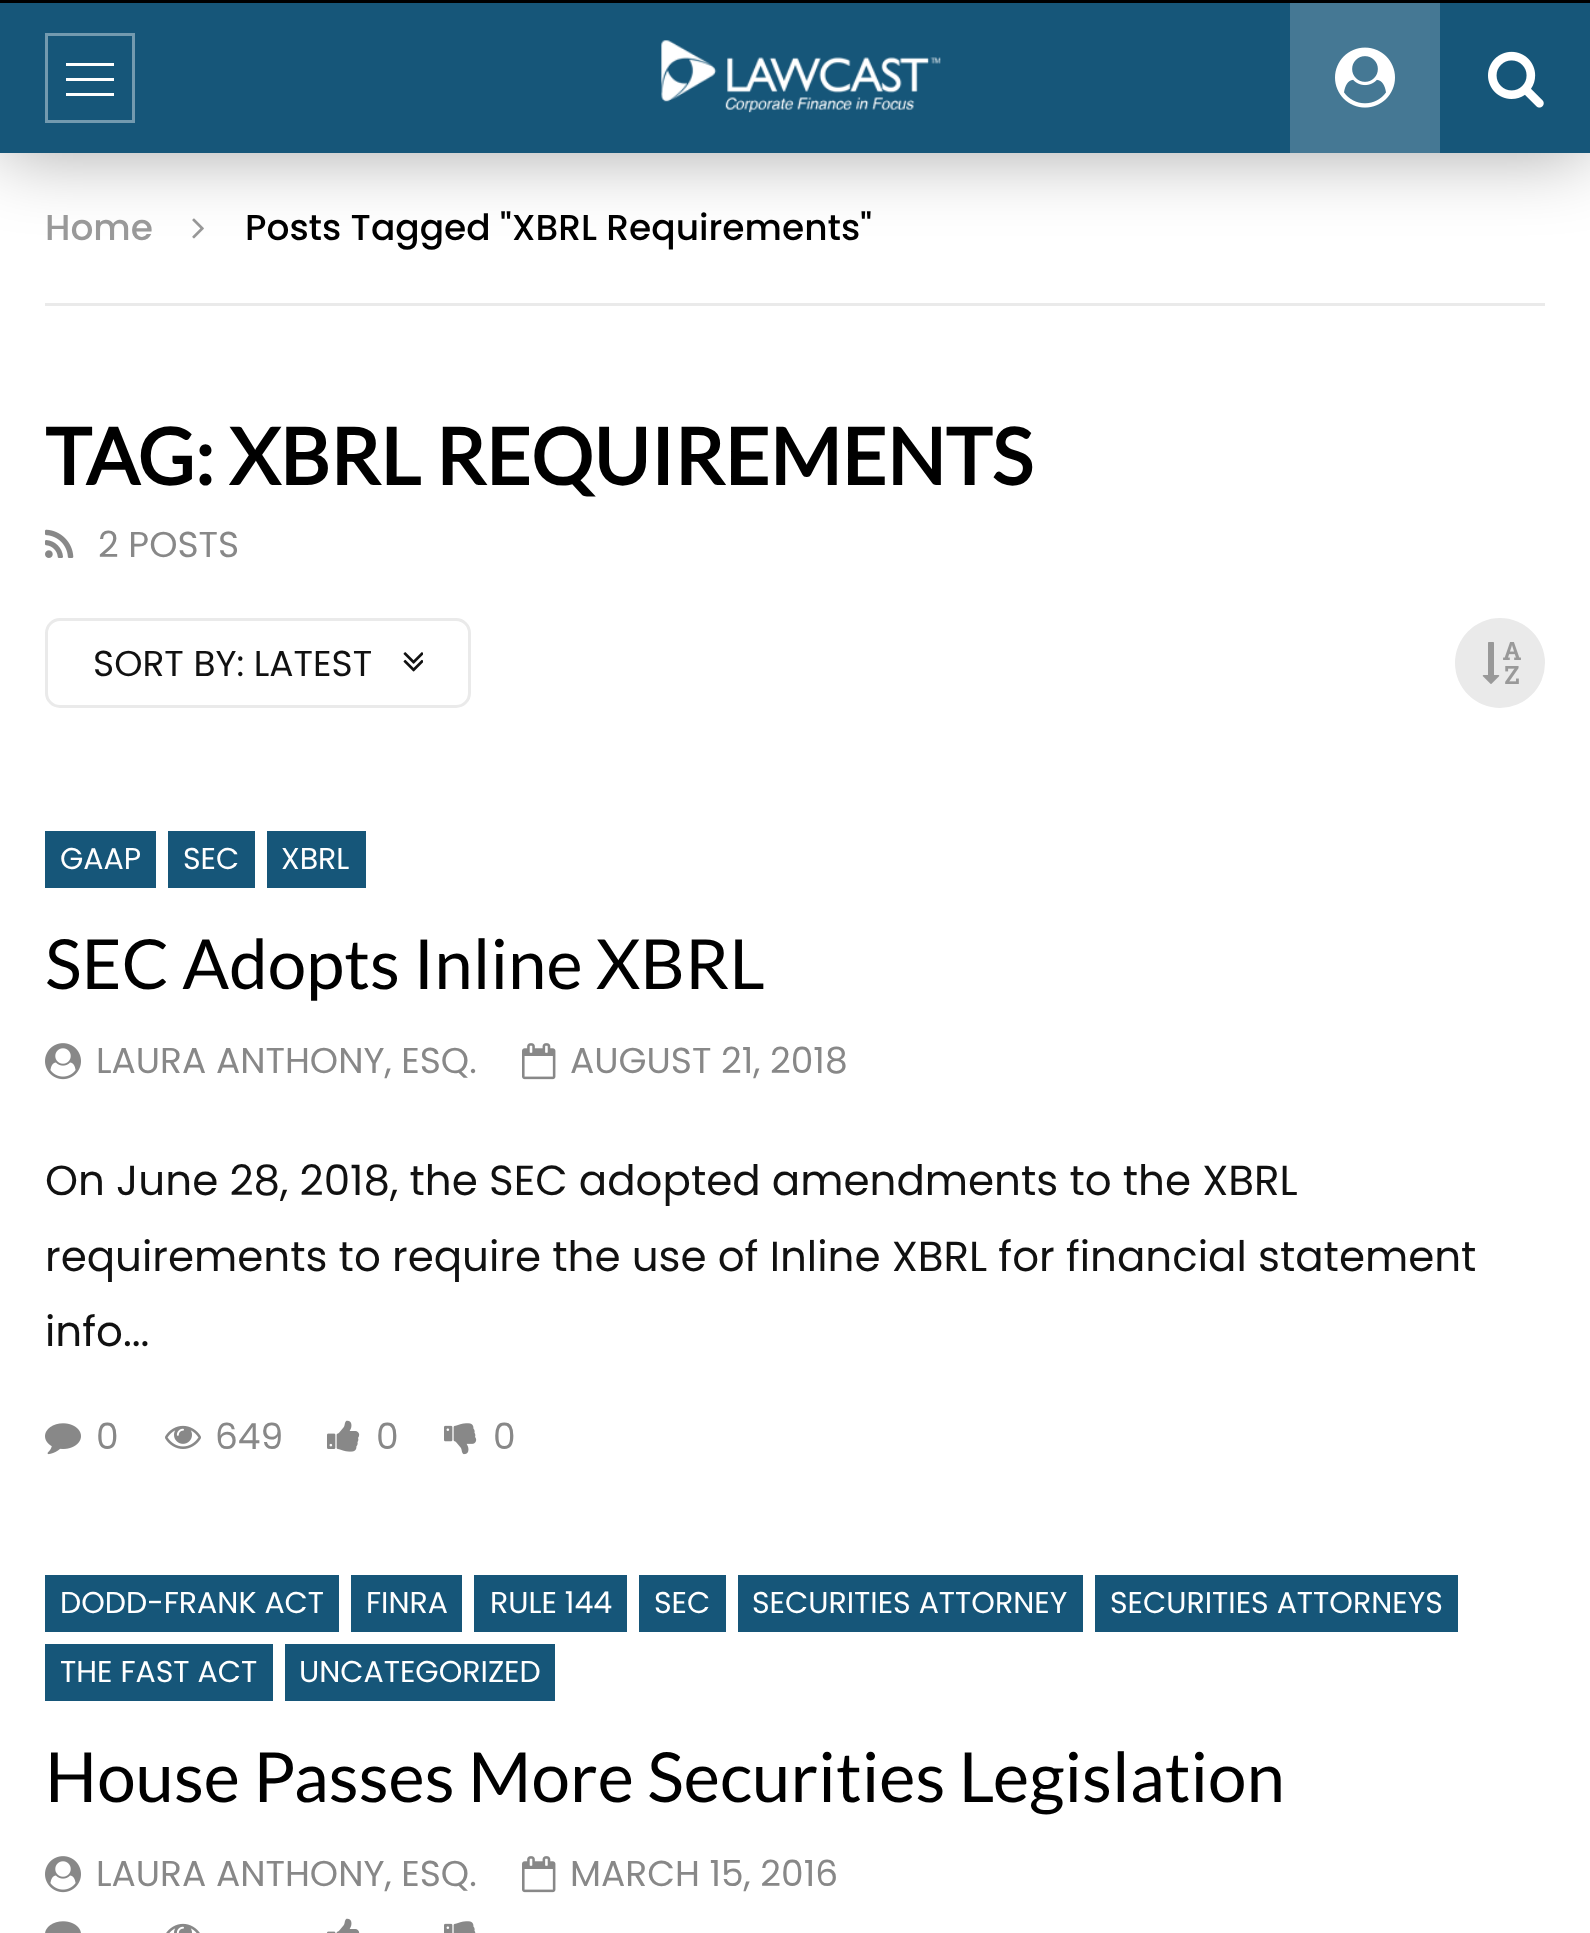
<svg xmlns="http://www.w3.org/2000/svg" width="1590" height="1933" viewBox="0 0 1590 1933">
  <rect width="100%" height="100%" fill="#fff"/>
  <path d="M0 0h1590v3H0z" fill="#000"/>
  <image x="192" y="218" width="12" height="21" href="img/4.png"/>
  <path d="M0 3h1590v150H0z" fill="#00000059" filter="blur(37.5px)"/>
  <path d="M0 3h1590v150H0z" fill="#165679"/>
  <path d="M46.5 34.5h87v87H46.5z" fill="none" stroke="#739aaf" stroke-width="3"/>
  <path d="M66 63h48v3H66z" fill="#fff"/>
  <path d="M66 78h48v3H66z" fill="#fff"/>
  <path d="M66 93h48v3H66z" fill="#fff"/>
  <image x="661" y="40" width="280" height="73" href="img/1.png"/>
  <path d="M1290 3h150v150H1290z" fill="#457894"/>
  <image x="1335" y="47" width="60" height="61" href="img/2.png"/>
  <image x="1488" y="51" width="56" height="57" href="img/3.png"/>
  <path d="M45 303h1500v3H45z" fill="#eaeaea"/>
  <image x="45" y="529" width="29" height="29" href="img/5.png"/>
  <rect x="46.5" y="619.5" width="423" height="87" rx="13.5" fill="none" stroke="#eaeaea" stroke-width="3"/>
  <image x="403" y="652" width="20" height="20" href="img/6.png"/>
  <circle cx="1500" cy="663" r="45" fill="#eaeaea"/>
  <image x="1482" y="642" width="39" height="42" href="img/7.png"/>
  <path d="M45 831h111v57H45z" fill="#165679"/>
  <path d="M168 831h87v57H168z" fill="#165679"/>
  <path d="M267 831h99v57H267z" fill="#165679"/>
  <image x="45" y="1043" width="36" height="37" href="img/8.png"/>
  <image x="522" y="1043" width="34" height="37" href="img/9.png"/>
  <image x="45" y="1423" width="36" height="32" href="img/10.png"/>
  <image x="165" y="1425" width="36" height="24" href="img/11.png"/>
  <image x="327" y="1420" width="33" height="32" href="img/12.png"/>
  <image x="444" y="1423" width="33" height="32" href="img/13.png"/>
  <path d="M45 1575h294v57H45z" fill="#165679"/>
  <path d="M351 1575h111v57H351z" fill="#165679"/>
  <path d="M474 1575h153v57H474z" fill="#165679"/>
  <path d="M639 1575h87v57H639z" fill="#165679"/>
  <path d="M738 1575h345v57H738z" fill="#165679"/>
  <path d="M1095 1575h363v57H1095z" fill="#165679"/>
  <path d="M45 1644h228v57H45z" fill="#165679"/>
  <path d="M285 1644h270v57H285z" fill="#165679"/>
  <image x="45" y="1856" width="36" height="37" href="img/8.png"/>
  <image x="522" y="1856" width="34" height="37" href="img/9.png"/>
  <image x="45" y="1921" width="36" height="12" href="img/14.png"/>
  <image x="166" y="1923" width="34" height="10" href="img/15.png"/>
  <image x="327" y="1918" width="33" height="15" href="img/16.png"/>
  <image x="444" y="1921" width="32" height="12" href="img/17.png"/>
  <text x="45" y="240" font-family="Poppins" font-size="36" font-weight="500" fill="#999">Home</text>
  <text x="245" y="240" font-family="Poppins" font-size="36" font-weight="500" fill="#000">Posts Tagged "XBRL Requirements"</text>
  <text x="45" y="485" font-family="Lato" font-size="78" font-weight="bold" fill="#000">TAG: XBRL REQUIREMENTS</text>
  <text x="98" y="557" font-family="Poppins" font-size="36" fill="#888">2 POSTS</text>
  <text x="93" y="676" font-family="Poppins" font-size="36" fill="#111">SORT BY: LATEST</text>
  <g font-family="Poppins" font-size="30" fill="#fff">
    <text x="60" y="869">GAAP</text>
    <text x="183" y="869">SEC</text>
    <text x="281" y="869">XBRL</text>
  </g>
  <text x="45" y="989" font-family="Lato" font-size="69" fill="#000">SEC Adopts Inline XBRL</text>
  <g font-family="Poppins" font-size="36" fill="#888">
    <text x="96" y="1073">LAURA ANTHONY, ESQ.</text>
    <text x="570" y="1073">AUGUST 21, 2018</text>
  </g>
  <g font-family="Poppins" font-size="42" fill="#111">
    <text x="45" y="1195">On June 28, 2018, the SEC adopted amendments to the XBRL</text>
    <text x="45" y="1271">requirements to require the use of Inline XBRL for financial statement</text>
    <text x="45" y="1346">info...</text>
  </g>
  <g font-family="Poppins" font-size="36" fill="#888">
    <text x="96" y="1449">0</text>
    <text x="215" y="1449">649</text>
    <text x="376" y="1449">0</text>
    <text x="493" y="1449">0</text>
  </g>
  <g font-family="Poppins" font-size="30" fill="#fff">
    <text x="60" y="1613">DODD-FRANK ACT</text>
    <text x="366" y="1613">FINRA</text>
    <text x="490" y="1613">RULE 144</text>
    <text x="654" y="1613">SEC</text>
    <text x="752" y="1613">SECURITIES ATTORNEY</text>
    <text x="1110" y="1613">SECURITIES ATTORNEYS</text>
    <text x="60" y="1682">THE FAST ACT</text>
    <text x="299" y="1682">UNCATEGORIZED</text>
  </g>
  <text x="45" y="1802" font-family="Lato" font-size="69" fill="#000">House Passes More Securities Legislation</text>
  <g font-family="Poppins" font-size="36" fill="#888">
    <text x="96" y="1886">LAURA ANTHONY, ESQ.</text>
    <text x="570" y="1886">MARCH 15, 2016</text>
  </g>
</svg>
